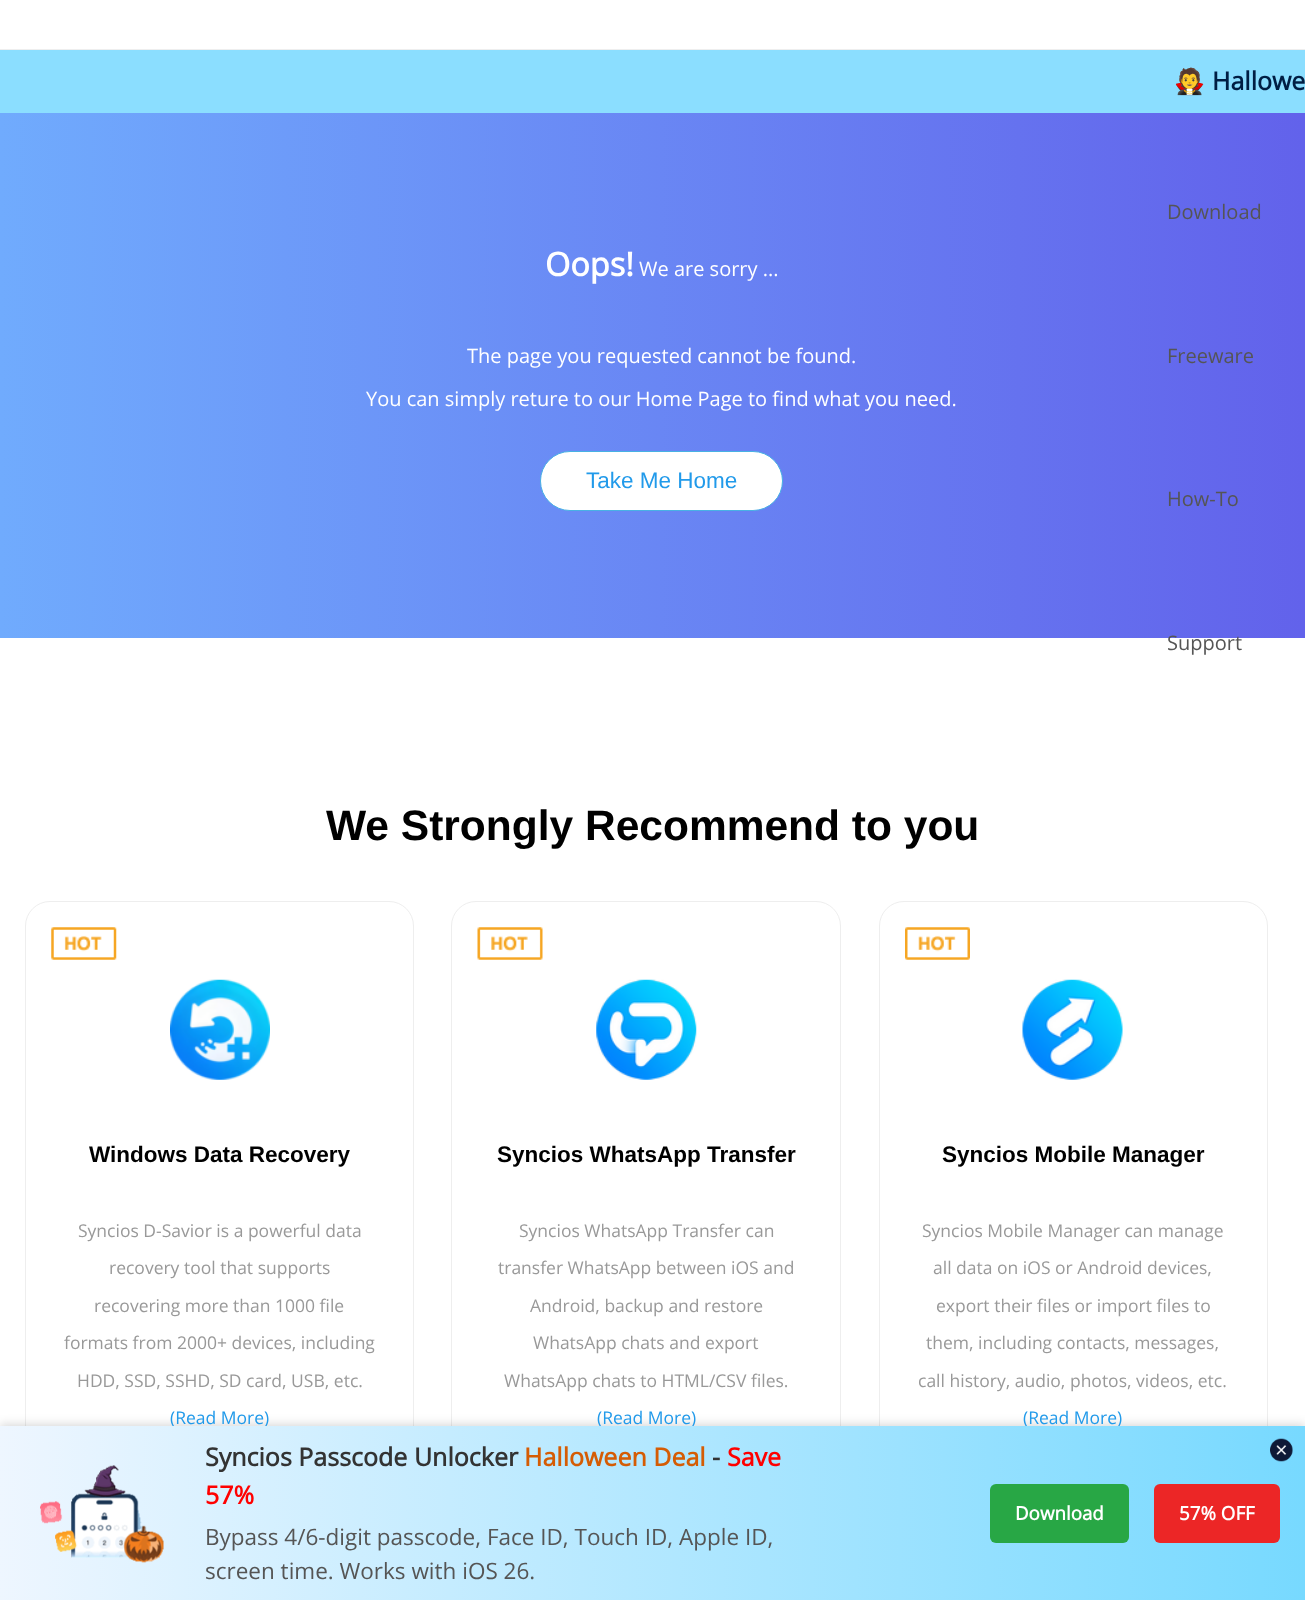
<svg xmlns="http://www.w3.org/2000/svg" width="1305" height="1600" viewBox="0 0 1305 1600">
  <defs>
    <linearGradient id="g1" gradientUnits="userSpaceOnUse" x1="0" y1="375" x2="1305" y2="375"><stop offset="0" stop-color="#70abfd"/><stop offset="1" stop-color="#6262eb"/></linearGradient>
    <linearGradient id="g2" gradientUnits="userSpaceOnUse" x1="0" y1="1513" x2="1305" y2="1513"><stop offset="0" stop-color="#eef6ff"/><stop offset="1" stop-color="#77d9ff"/></linearGradient>
  </defs>
  <rect width="100%" height="100%" fill="#fff"/>
  <path d="M0 50h1305v63H0z" fill="#8bdeff"/>
  <path d="M0 113h1305v525H0z" fill="url(#g1)"/>
  <rect x="540.5" y="451.5" width="242" height="59" rx="29.5" fill="#fff" stroke="#48b1e4"/>
  <path d="M0 49h1305v1H0z" fill="#eee"/>
  <rect x="25.5" y="901.5" width="388" height="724" rx="24.5" fill="none" stroke="#eee"/>
  <image x="51" y="927" width="66" height="33" href="img/1.png"/>
  <image x="170" y="979" width="100" height="101" href="img/2.png"/>
  <rect x="451.5" y="901.5" width="389" height="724" rx="24.5" fill="none" stroke="#eee"/>
  <image x="477" y="927" width="66" height="33" href="img/3.png"/>
  <image x="596" y="979" width="101" height="101" href="img/4.png"/>
  <rect x="879.5" y="901.5" width="388" height="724" rx="24.5" fill="none" stroke="#eee"/>
  <image x="905" y="927" width="65" height="33" href="img/5.png"/>
  <image x="1022" y="979" width="101" height="101" href="img/6.png"/>
  <path d="M0 1424h1305v174H0z" fill="#00000026" filter="blur(5px)"/>
  <text x="1174" y="90" font-family="Noto Color Emoji" font-size="25" fill="#001e44">🧛</text>
  <text x="1212" y="90" font-family="Open Sans" font-size="25" font-weight="bold" fill="#001e44">Hallowe</text>
  <text x="545" y="276" font-family="Open Sans" font-size="32.5" font-weight="bold" fill="#fff">Oops!</text>
  <g font-family="Open Sans" font-size="20" fill="#fff">
    <text x="639" y="276">We are sorry ...</text>
    <text x="467" y="363">The page you requested cannot be found.</text>
    <text x="366" y="406">You can simply reture to our Home Page to find what you need.</text>
  </g>
  <text x="586" y="488" font-family="Liberation Sans" font-size="22.5" fill="#219aea">Take Me Home</text>
  <g font-family="Open Sans" font-size="20" fill="#555">
    <text x="1167" y="219">Download</text>
    <text x="1167" y="363">Freeware</text>
    <text x="1167" y="506">How-To</text>
    <text x="1167" y="650">Support</text>
  </g>
  <text x="326" y="840" font-family="Liberation Sans" font-size="42.5" font-weight="bold" fill="#000">We Strongly Recommend to you</text>
  <text x="89" y="1162" font-family="Liberation Sans" font-size="22.5" font-weight="bold" fill="#000">Windows Data Recovery</text>
  <g font-family="Open Sans" font-size="17.5" fill="#999">
    <text x="78" y="1237">Syncios D-Savior is a powerful data</text>
    <text x="109" y="1274">recovery tool that supports</text>
    <text x="94" y="1312">recovering more than 1000 file</text>
    <text x="64" y="1349">formats from 2000+ devices, including</text>
    <text x="77" y="1387">HDD, SSD, SSHD, SD card, USB, etc.</text>
  </g>
  <text x="170" y="1424" font-family="Open Sans" font-size="17.5" fill="#219aea">(Read More)</text>
  <text x="497" y="1162" font-family="Liberation Sans" font-size="22.5" font-weight="bold" fill="#000">Syncios WhatsApp Transfer</text>
  <g font-family="Open Sans" font-size="17.5" fill="#999">
    <text x="519" y="1237">Syncios WhatsApp Transfer can</text>
    <text x="498" y="1274">transfer WhatsApp between iOS and</text>
    <text x="530" y="1312">Android, backup and restore</text>
    <text x="533" y="1349">WhatsApp chats and export</text>
    <text x="504" y="1387">WhatsApp chats to HTML/CSV files.</text>
  </g>
  <text x="597" y="1424" font-family="Open Sans" font-size="17.5" fill="#219aea">(Read More)</text>
  <text x="942" y="1162" font-family="Liberation Sans" font-size="22.5" font-weight="bold" fill="#000">Syncios Mobile Manager</text>
  <g font-family="Open Sans" font-size="17.5" fill="#999">
    <text x="922" y="1237">Syncios Mobile Manager can manage</text>
    <text x="933" y="1274">all data on iOS or Android devices,</text>
    <text x="936" y="1312">export their files or import files to</text>
    <text x="926" y="1349">them, including contacts, messages,</text>
    <text x="918" y="1387">call history, audio, photos, videos, etc.</text>
  </g>
  <text x="1023" y="1424" font-family="Open Sans" font-size="17.5" fill="#219aea">(Read More)</text>
  <path d="M0 1426h1305v174H0z" fill="url(#g2)"/>
  <image x="40" y="1465" width="124" height="98" href="img/7.png"/>
  <text x="205" y="1466" font-family="Open Sans" font-size="25" font-weight="bold" fill="#333">Syncios Passcode Unlocker</text>
  <text x="524" y="1466" font-family="Open Sans" font-size="25" font-weight="bold" fill="#d55c04">Halloween Deal</text>
  <text x="712" y="1466" font-family="Open Sans" font-size="25" font-weight="bold" fill="#333">-</text>
  <g font-family="Open Sans" font-size="25" font-weight="bold" fill="#f00">
    <text x="727" y="1466">Save</text>
    <text x="205" y="1504">57%</text>
  </g>
  <g font-family="Open Sans" font-size="22.5" fill="#555">
    <text x="205" y="1545">Bypass 4/6-digit passcode, Face ID, Touch ID, Apple ID,</text>
    <text x="205" y="1579">screen time. Works with iOS 26.</text>
  </g>
  <rect x="990" y="1484" width="139" height="59" rx="6" fill="#28a745"/>
  <text x="1015" y="1520" font-family="Open Sans" font-size="18.75" font-weight="bold" fill="#fff">Download</text>
  <rect x="1154" y="1484" width="126" height="59" rx="6" fill="#ec2626"/>
  <text x="1179" y="1520" font-family="Open Sans" font-size="18.75" font-weight="bold" fill="#fff">57% OFF</text>
  <image x="1270" y="1438" width="23" height="24" href="img/8.png"/>
</svg>
